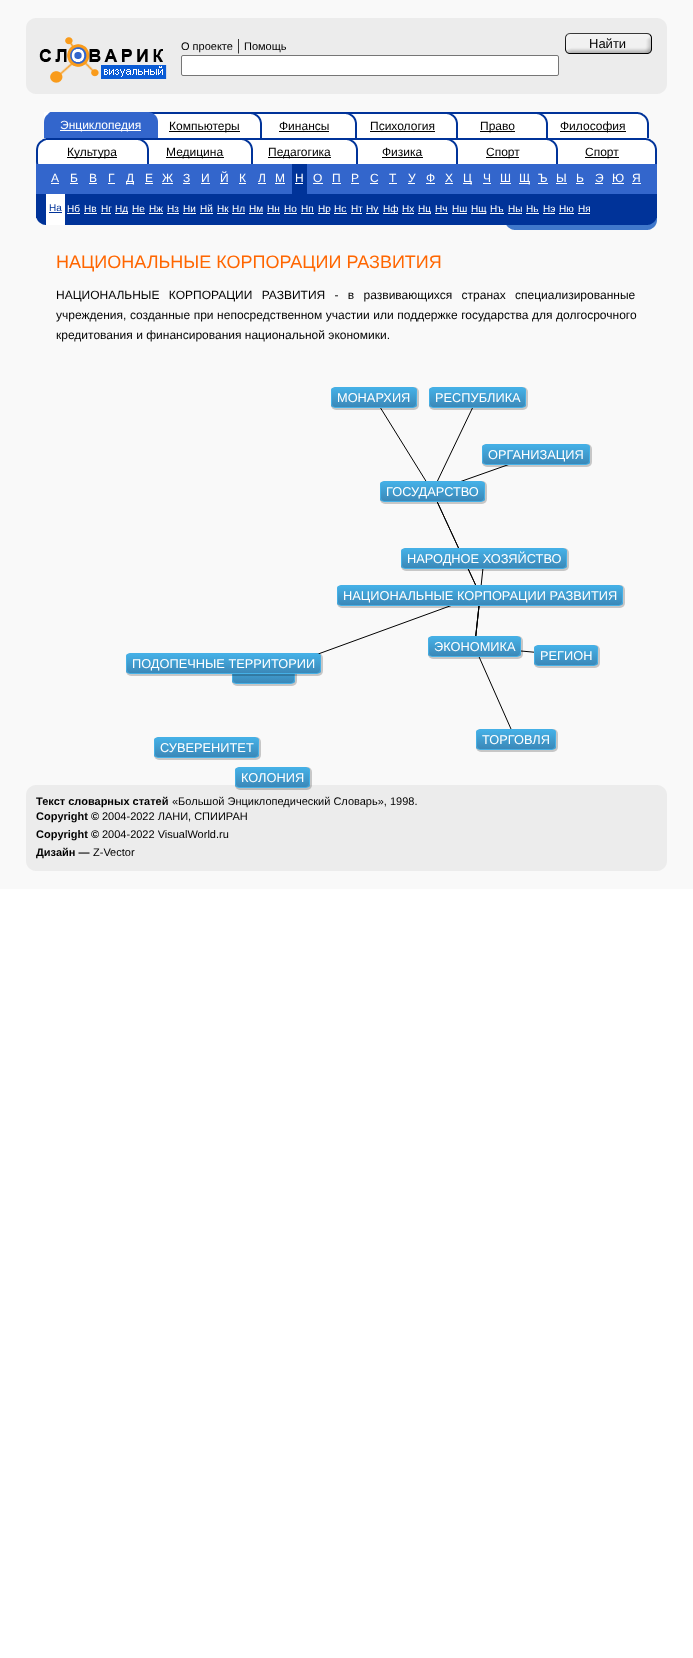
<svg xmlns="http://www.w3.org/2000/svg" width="693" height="1658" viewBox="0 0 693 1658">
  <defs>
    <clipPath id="clip1"><rect x="331" y="387" width="86" height="21" rx="4"/></clipPath>
    <linearGradient id="g1" gradientUnits="userSpaceOnUse" x1="332" y1="407" x2="332" y2="388"><stop offset="0" stop-color="#3b88b8"/><stop offset="0.99" stop-color="#45b0e6"/></linearGradient>
    <clipPath id="clip2"><rect x="429" y="387" width="97" height="21" rx="4"/></clipPath>
    <linearGradient id="g2" gradientUnits="userSpaceOnUse" x1="430" y1="407" x2="430" y2="388"><stop offset="0" stop-color="#3b88b8"/><stop offset="0.99" stop-color="#45b0e6"/></linearGradient>
    <clipPath id="clip3"><rect x="482" y="444" width="108" height="21" rx="4"/></clipPath>
    <linearGradient id="g3" gradientUnits="userSpaceOnUse" x1="483" y1="464" x2="483" y2="445"><stop offset="0" stop-color="#3b88b8"/><stop offset="0.99" stop-color="#45b0e6"/></linearGradient>
    <clipPath id="clip4"><rect x="380" y="481" width="105" height="21" rx="4"/></clipPath>
    <linearGradient id="g4" gradientUnits="userSpaceOnUse" x1="381" y1="501" x2="381" y2="482"><stop offset="0" stop-color="#3b88b8"/><stop offset="0.99" stop-color="#45b0e6"/></linearGradient>
    <clipPath id="clip5"><rect x="401" y="548" width="166" height="21" rx="4"/></clipPath>
    <linearGradient id="g5" gradientUnits="userSpaceOnUse" x1="402" y1="568" x2="402" y2="549"><stop offset="0" stop-color="#3b88b8"/><stop offset="0.99" stop-color="#45b0e6"/></linearGradient>
    <clipPath id="clip6"><rect x="337" y="585" width="286" height="21" rx="4"/></clipPath>
    <linearGradient id="g6" gradientUnits="userSpaceOnUse" x1="338" y1="605" x2="338" y2="586"><stop offset="0" stop-color="#3b88b8"/><stop offset="0.99" stop-color="#45b0e6"/></linearGradient>
    <clipPath id="clip7"><rect x="428" y="636" width="93" height="21" rx="4"/></clipPath>
    <linearGradient id="g7" gradientUnits="userSpaceOnUse" x1="429" y1="656" x2="429" y2="637"><stop offset="0" stop-color="#3b88b8"/><stop offset="0.99" stop-color="#45b0e6"/></linearGradient>
    <clipPath id="clip8"><rect x="534" y="645" width="64" height="21" rx="4"/></clipPath>
    <linearGradient id="g8" gradientUnits="userSpaceOnUse" x1="535" y1="665" x2="535" y2="646"><stop offset="0" stop-color="#3b88b8"/><stop offset="0.99" stop-color="#45b0e6"/></linearGradient>
    <clipPath id="clip9"><rect x="232" y="663" width="63" height="21" rx="4"/></clipPath>
    <linearGradient id="g9" gradientUnits="userSpaceOnUse" x1="233" y1="683" x2="233" y2="664"><stop offset="0" stop-color="#3b88b8"/><stop offset="0.99" stop-color="#45b0e6"/></linearGradient>
    <clipPath id="clip10"><rect x="126" y="653" width="195" height="21" rx="4"/></clipPath>
    <linearGradient id="g10" gradientUnits="userSpaceOnUse" x1="127" y1="673" x2="127" y2="654"><stop offset="0" stop-color="#3b88b8"/><stop offset="0.99" stop-color="#45b0e6"/></linearGradient>
    <clipPath id="clip11"><rect x="476" y="729" width="80" height="21" rx="4"/></clipPath>
    <linearGradient id="g11" gradientUnits="userSpaceOnUse" x1="477" y1="749" x2="477" y2="730"><stop offset="0" stop-color="#3b88b8"/><stop offset="0.99" stop-color="#45b0e6"/></linearGradient>
    <clipPath id="clip12"><rect x="154" y="737" width="105" height="21" rx="4"/></clipPath>
    <linearGradient id="g12" gradientUnits="userSpaceOnUse" x1="155" y1="757" x2="155" y2="738"><stop offset="0" stop-color="#3b88b8"/><stop offset="0.99" stop-color="#45b0e6"/></linearGradient>
    <clipPath id="clip13"><rect x="235" y="767" width="75" height="21" rx="4"/></clipPath>
    <linearGradient id="g13" gradientUnits="userSpaceOnUse" x1="236" y1="787" x2="236" y2="768"><stop offset="0" stop-color="#3b88b8"/><stop offset="0.99" stop-color="#45b0e6"/></linearGradient>
  </defs>
  <rect width="100%" height="100%" fill="#fff"/>
  <path d="M0 0h693v889H0z" fill="#f9f9f9"/>
  <image x="26" y="18" width="10" height="10" href="img/1.png"/>
  <path d="M36 18h621v10H36z" fill="#ececec"/>
  <image x="657" y="18" width="10" height="10" href="img/2.png"/>
  <path d="M26 28h641v56H26z" fill="#ececec"/>
  <image x="39" y="37" width="128" height="46" href="img/3.png"/>
  <rect x="181.5" y="55.5" width="377" height="20" rx="1.5" fill="#fff" stroke="#767676"/>
  <image x="565" y="33" width="87" height="21" href="img/4.png"/>
  <image x="26" y="84" width="10" height="10" href="img/5.png"/>
  <path d="M36 84h621v10H36z" fill="#ececec"/>
  <image x="657" y="84" width="10" height="10" href="img/6.png"/>
  <image x="44" y="112" width="10" height="26" href="img/7.png"/>
  <path d="M54 112h92v26H54z" fill="#36c"/>
  <path d="M60 130h81v1H60z" fill="#fff"/>
  <image x="146" y="112" width="12" height="26" href="img/8.png"/>
  <path d="M158 114h93v24H158z" fill="#fff"/>
  <path d="M158 112h93v2H158z" fill="#039"/>
  <path d="M169 131h71v1H169z" fill="#000"/>
  <image x="251" y="112" width="11" height="26" href="img/9.png"/>
  <path d="M262 114h84v24H262z" fill="#fff"/>
  <path d="M262 112h84v2H262z" fill="#039"/>
  <path d="M279 131h50v1H279z" fill="#000"/>
  <image x="346" y="112" width="11" height="26" href="img/9.png"/>
  <path d="M357 114h90v24H357z" fill="#fff"/>
  <path d="M357 112h90v2H357z" fill="#039"/>
  <path d="M370 131h65v1H370z" fill="#000"/>
  <image x="447" y="112" width="11" height="26" href="img/9.png"/>
  <path d="M458 114h79v24H458z" fill="#fff"/>
  <path d="M458 112h79v2H458z" fill="#039"/>
  <path d="M480 131h35v1H480z" fill="#000"/>
  <image x="537" y="112" width="11" height="26" href="img/9.png"/>
  <path d="M548 114h90v24H548z" fill="#fff"/>
  <path d="M548 112h90v2H548z" fill="#039"/>
  <path d="M560 131h66v1H560z" fill="#000"/>
  <image x="638" y="112" width="11" height="26" href="img/10.png"/>
  <image x="36" y="138" width="10" height="26" href="img/11.png"/>
  <path d="M46 140h92v24H46z" fill="#fff"/>
  <path d="M46 138h92v2H46z" fill="#039"/>
  <path d="M67 157h50v1H67z" fill="#000"/>
  <image x="138" y="138" width="11" height="26" href="img/9.png"/>
  <path d="M149 140h93v24H149z" fill="#fff"/>
  <path d="M149 138h93v2H149z" fill="#039"/>
  <path d="M166 157h58v1H166z" fill="#000"/>
  <image x="242" y="138" width="11" height="26" href="img/9.png"/>
  <path d="M253 140h94v24H253z" fill="#fff"/>
  <path d="M253 138h94v2H253z" fill="#039"/>
  <path d="M268 157h63v1H268z" fill="#000"/>
  <image x="347" y="138" width="11" height="26" href="img/9.png"/>
  <path d="M358 140h89v24H358z" fill="#fff"/>
  <path d="M358 138h89v2H358z" fill="#039"/>
  <path d="M382 157h41v1H382z" fill="#000"/>
  <image x="447" y="138" width="11" height="26" href="img/9.png"/>
  <path d="M458 140h89v24H458z" fill="#fff"/>
  <path d="M458 138h89v2H458z" fill="#039"/>
  <path d="M486 157h33v1H486z" fill="#000"/>
  <image x="547" y="138" width="11" height="26" href="img/9.png"/>
  <path d="M558 140h88v24H558z" fill="#fff"/>
  <path d="M558 138h88v2H558z" fill="#039"/>
  <path d="M585 157h34v1H585z" fill="#000"/>
  <image x="646" y="138" width="11" height="26" href="img/10.png"/>
  <path d="M36 164h621v30H36z" fill="#36c"/>
  <path d="M51 183h8v1H51z" fill="#fff"/>
  <path d="M70 183h8v1H70z" fill="#fff"/>
  <path d="M89 183h8v1H89z" fill="#fff"/>
  <path d="M108 183h7v1H108z" fill="#fff"/>
  <path d="M126 183h8v1H126z" fill="#fff"/>
  <path d="M145 183h8v1H145z" fill="#fff"/>
  <path d="M162 183h11v1H162z" fill="#fff"/>
  <path d="M183 183h7v1H183z" fill="#fff"/>
  <path d="M201 183h9v1H201z" fill="#fff"/>
  <path d="M220 183h8v1H220z" fill="#fff"/>
  <path d="M239 183h7v1H239z" fill="#fff"/>
  <path d="M258 183h8v1H258z" fill="#fff"/>
  <path d="M275 183h10v1H275z" fill="#fff"/>
  <path d="M292 164h15v30H292z" fill="#039"/>
  <path d="M295 183h8v1H295z" fill="#fff"/>
  <path d="M313 183h10v1H313z" fill="#fff"/>
  <path d="M332 183h9v1H332z" fill="#fff"/>
  <path d="M351 183h8v1H351z" fill="#fff"/>
  <path d="M370 183h8v1H370z" fill="#fff"/>
  <path d="M389 183h8v1H389z" fill="#fff"/>
  <path d="M408 183h7v1H408z" fill="#fff"/>
  <path d="M426 183h9v1H426z" fill="#fff"/>
  <path d="M445 183h8v1H445z" fill="#fff"/>
  <path d="M463 183h9v1H463z" fill="#fff"/>
  <path d="M483 183h8v1H483z" fill="#fff"/>
  <path d="M500 183h11v1H500z" fill="#fff"/>
  <path d="M519 183h11v1H519z" fill="#fff"/>
  <path d="M538 183h10v1H538z" fill="#fff"/>
  <path d="M556 183h11v1H556z" fill="#fff"/>
  <path d="M576 183h8v1H576z" fill="#fff"/>
  <path d="M595 183h8v1H595z" fill="#fff"/>
  <path d="M612 183h12v1H612z" fill="#fff"/>
  <path d="M632 183h9v1H632z" fill="#fff"/>
  <path d="M36 194h610v31H36z" fill="#039"/>
  <path d="M46 194h19v31H46z" fill="#fff"/>
  <path d="M49 212h13v1H49z" fill="#039"/>
  <path d="M67 213h13v1H67z" fill="#fff"/>
  <path d="M84 213h13v1H84z" fill="#fff"/>
  <path d="M101 213h10v1H101z" fill="#fff"/>
  <path d="M115 213h13v1H115z" fill="#fff"/>
  <path d="M132 213h13v1H132z" fill="#fff"/>
  <path d="M149 213h14v1H149z" fill="#fff"/>
  <path d="M167 213h12v1H167z" fill="#fff"/>
  <path d="M183 213h13v1H183z" fill="#fff"/>
  <path d="M200 213h13v1H200z" fill="#fff"/>
  <path d="M217 213h11v1H217z" fill="#fff"/>
  <path d="M232 213h13v1H232z" fill="#fff"/>
  <path d="M249 213h14v1H249z" fill="#fff"/>
  <path d="M267 213h13v1H267z" fill="#fff"/>
  <path d="M284 213h13v1H284z" fill="#fff"/>
  <path d="M301 213h13v1H301z" fill="#fff"/>
  <path d="M318 213h12v1H318z" fill="#fff"/>
  <path d="M334 213h13v1H334z" fill="#fff"/>
  <path d="M351 213h11v1H351z" fill="#fff"/>
  <path d="M366 213h13v1H366z" fill="#fff"/>
  <path d="M383 213h15v1H383z" fill="#fff"/>
  <path d="M402 213h12v1H402z" fill="#fff"/>
  <path d="M418 213h13v1H418z" fill="#fff"/>
  <path d="M435 213h13v1H435z" fill="#fff"/>
  <path d="M452 213h15v1H452z" fill="#fff"/>
  <path d="M471 213h15v1H471z" fill="#fff"/>
  <path d="M490 213h14v1H490z" fill="#fff"/>
  <path d="M508 213h14v1H508z" fill="#fff"/>
  <path d="M526 213h13v1H526z" fill="#fff"/>
  <path d="M543 213h12v1H543z" fill="#fff"/>
  <path d="M559 213h15v1H559z" fill="#fff"/>
  <path d="M578 213h12v1H578z" fill="#fff"/>
  <path d="M646 194h11v24H646z" fill="#039"/>
  <image x="646" y="218" width="11" height="12" href="img/12.png"/>
  <image x="36" y="218" width="9" height="7" href="img/13.png"/>
  <image x="506" y="225" width="140" height="5" href="img/14.png"/>
  <image x="317" y="408" width="217" height="321" href="img/15.png"/>
  <rect x="331" y="387" width="88" height="23" rx="5" fill="#00000033" filter="blur(0.5px)"/>
  <g clip-path="url(#clip1)">
    <path d="M331 388h86v19H331z" fill="url(#g1)"/>
  </g>
  <rect x="331.5" y="387.5" width="85" height="20" rx="3.5" fill="none" stroke="#45b0e6"/>
  <rect x="429" y="387" width="99" height="23" rx="5" fill="#00000033" filter="blur(0.5px)"/>
  <g clip-path="url(#clip2)">
    <path d="M429 388h97v19H429z" fill="url(#g2)"/>
  </g>
  <rect x="429.5" y="387.5" width="96" height="20" rx="3.5" fill="none" stroke="#45b0e6"/>
  <rect x="482" y="444" width="110" height="23" rx="5" fill="#00000033" filter="blur(0.5px)"/>
  <g clip-path="url(#clip3)">
    <path d="M482 445h108v19H482z" fill="url(#g3)"/>
  </g>
  <rect x="482.5" y="444.5" width="107" height="20" rx="3.5" fill="none" stroke="#45b0e6"/>
  <rect x="380" y="481" width="107" height="23" rx="5" fill="#00000033" filter="blur(0.5px)"/>
  <g clip-path="url(#clip4)">
    <path d="M380 482h105v19H380z" fill="url(#g4)"/>
  </g>
  <rect x="380.5" y="481.5" width="104" height="20" rx="3.5" fill="none" stroke="#45b0e6"/>
  <rect x="401" y="548" width="168" height="23" rx="5" fill="#00000033" filter="blur(0.5px)"/>
  <g clip-path="url(#clip5)">
    <path d="M401 549h166v19H401z" fill="url(#g5)"/>
  </g>
  <rect x="401.5" y="548.5" width="165" height="20" rx="3.5" fill="none" stroke="#45b0e6"/>
  <rect x="337" y="585" width="288" height="23" rx="5" fill="#00000033" filter="blur(0.5px)"/>
  <g clip-path="url(#clip6)">
    <path d="M337 586h286v19H337z" fill="url(#g6)"/>
  </g>
  <rect x="337.5" y="585.5" width="285" height="20" rx="3.5" fill="none" stroke="#45b0e6"/>
  <rect x="428" y="636" width="95" height="23" rx="5" fill="#00000033" filter="blur(0.5px)"/>
  <g clip-path="url(#clip7)">
    <path d="M428 637h93v19H428z" fill="url(#g7)"/>
  </g>
  <rect x="428.5" y="636.5" width="92" height="20" rx="3.5" fill="none" stroke="#45b0e6"/>
  <rect x="534" y="645" width="66" height="23" rx="5" fill="#00000033" filter="blur(0.5px)"/>
  <g clip-path="url(#clip8)">
    <path d="M534 646h64v19H534z" fill="url(#g8)"/>
  </g>
  <rect x="534.5" y="645.5" width="63" height="20" rx="3.5" fill="none" stroke="#45b0e6"/>
  <rect x="232" y="663" width="65" height="23" rx="5" fill="#00000033" filter="blur(0.5px)"/>
  <g clip-path="url(#clip9)">
    <path d="M232 674h63v9H232z" fill="url(#g9)"/>
  </g>
  <rect x="232.5" y="663.5" width="62" height="20" rx="3.5" fill="none" stroke="#45b0e6"/>
  <rect x="126" y="653" width="197" height="23" rx="5" fill="#00000033" filter="blur(0.5px)"/>
  <g clip-path="url(#clip10)">
    <path d="M126 654h195v19H126z" fill="url(#g10)"/>
  </g>
  <rect x="126.5" y="653.5" width="194" height="20" rx="3.5" fill="none" stroke="#45b0e6"/>
  <rect x="476" y="729" width="82" height="23" rx="5" fill="#00000033" filter="blur(0.5px)"/>
  <g clip-path="url(#clip11)">
    <path d="M476 730h80v19H476z" fill="url(#g11)"/>
  </g>
  <rect x="476.5" y="729.5" width="79" height="20" rx="3.5" fill="none" stroke="#45b0e6"/>
  <rect x="154" y="737" width="107" height="23" rx="5" fill="#00000033" filter="blur(0.5px)"/>
  <g clip-path="url(#clip12)">
    <path d="M154 738h105v19H154z" fill="url(#g12)"/>
  </g>
  <rect x="154.5" y="737.5" width="104" height="20" rx="3.5" fill="none" stroke="#45b0e6"/>
  <path d="M36 785h621v10H36z" fill="#ececec"/>
  <rect x="235" y="767" width="77" height="23" rx="5" fill="#00000033" filter="blur(0.5px)"/>
  <g clip-path="url(#clip13)">
    <path d="M235 768h75v19H235z" fill="url(#g13)"/>
  </g>
  <rect x="235.5" y="767.5" width="74" height="20" rx="3.5" fill="none" stroke="#45b0e6"/>
  <image x="26" y="785" width="10" height="10" href="img/1.png"/>
  <image x="657" y="785" width="10" height="10" href="img/2.png"/>
  <path d="M26 795h641v66H26z" fill="#ececec"/>
  <image x="26" y="861" width="10" height="10" href="img/5.png"/>
  <path d="M36 861h621v10H36z" fill="#ececec"/>
  <image x="657" y="861" width="10" height="10" href="img/6.png"/>
  <text x="181" y="50" font-family="Liberation Sans" font-size="11" fill="#000">О проекте</text>
  <text x="237" y="50" font-family="Liberation Serif" font-size="16" fill="#000">|</text>
  <text x="244" y="50" font-family="Liberation Sans" font-size="11" fill="#000">Помощь</text>
  <text x="589" y="48" font-family="Liberation Sans" font-size="13" fill="#000">Найти</text>
  <text x="60" y="129" font-family="Liberation Sans" font-size="12" fill="#fff">Энциклопедия</text>
  <g font-family="Liberation Sans" font-size="12" fill="#000">
    <text x="169" y="130">Компьютеры</text>
    <text x="279" y="130">Финансы</text>
    <text x="370" y="130">Психология</text>
    <text x="480" y="130">Право</text>
    <text x="560" y="130">Философия</text>
    <text x="67" y="156">Культура</text>
    <text x="166" y="156">Медицина</text>
    <text x="268" y="156">Педагогика</text>
    <text x="382" y="156">Физика</text>
    <text x="486" y="156">Спорт</text>
    <text x="585" y="156">Спорт</text>
  </g>
  <g font-family="Liberation Sans" font-size="12" fill="#fff">
    <text x="51" y="182">А</text>
    <text x="70" y="182">Б</text>
    <text x="89" y="182">В</text>
    <text x="108" y="182">Г</text>
    <text x="126" y="182">Д</text>
    <text x="145" y="182">Е</text>
    <text x="162" y="182">Ж</text>
    <text x="183" y="182">З</text>
    <text x="201" y="182">И</text>
    <text x="220" y="182">Й</text>
    <text x="239" y="182">К</text>
    <text x="258" y="182">Л</text>
    <text x="275" y="182">М</text>
    <text x="295" y="182">Н</text>
    <text x="313" y="182">О</text>
    <text x="332" y="182">П</text>
    <text x="351" y="182">Р</text>
    <text x="370" y="182">С</text>
    <text x="389" y="182">Т</text>
    <text x="408" y="182">У</text>
    <text x="426" y="182">Ф</text>
    <text x="445" y="182">Х</text>
    <text x="463" y="182">Ц</text>
    <text x="483" y="182">Ч</text>
    <text x="500" y="182">Ш</text>
    <text x="519" y="182">Щ</text>
    <text x="538" y="182">Ъ</text>
    <text x="556" y="182">Ы</text>
    <text x="576" y="182">Ь</text>
    <text x="595" y="182">Э</text>
    <text x="612" y="182">Ю</text>
    <text x="632" y="182">Я</text>
  </g>
  <text x="49" y="211" font-family="Liberation Sans" font-size="10" fill="#039">На</text>
  <g font-family="Liberation Sans" font-size="10" fill="#fff">
    <text x="67" y="212">Нб</text>
    <text x="84" y="212">Нв</text>
    <text x="101" y="212">Нг</text>
    <text x="115" y="212">Нд</text>
    <text x="132" y="212">Не</text>
    <text x="149" y="212">Нж</text>
    <text x="167" y="212">Нз</text>
    <text x="183" y="212">Ни</text>
    <text x="200" y="212">Нй</text>
    <text x="217" y="212">Нк</text>
    <text x="232" y="212">Нл</text>
    <text x="249" y="212">Нм</text>
    <text x="267" y="212">Нн</text>
    <text x="284" y="212">Но</text>
    <text x="301" y="212">Нп</text>
    <text x="318" y="212">Нр</text>
    <text x="334" y="212">Нс</text>
    <text x="351" y="212">Нт</text>
    <text x="366" y="212">Ну</text>
    <text x="383" y="212">Нф</text>
    <text x="402" y="212">Нх</text>
    <text x="418" y="212">Нц</text>
    <text x="435" y="212">Нч</text>
    <text x="452" y="212">Нш</text>
    <text x="471" y="212">Нщ</text>
    <text x="490" y="212">Нъ</text>
    <text x="508" y="212">Ны</text>
    <text x="526" y="212">Нь</text>
    <text x="543" y="212">Нэ</text>
    <text x="559" y="212">Ню</text>
    <text x="578" y="212">Ня</text>
  </g>
  <text x="56" y="268" font-family="Liberation Sans" font-size="18" fill="#f60">НАЦИОНАЛЬНЫЕ КОРПОРАЦИИ РАЗВИТИЯ</text>
  <g font-family="Liberation Sans" font-size="12" fill="#000">
    <text x="56" y="299" word-spacing="6">НАЦИОНАЛЬНЫЕ КОРПОРАЦИИ РАЗВИТИЯ - в развивающихся странах специализированные</text>
    <text x="56" y="319" word-spacing="0.25">учреждения, созданные при непосредственном участии или поддержке государства для долгосрочного</text>
    <text x="56" y="339">кредитования и финансирования национальной экономики.</text>
  </g>
  <g font-family="Liberation Sans" font-size="12.8" fill="#fff">
    <text x="337" y="402">МОНАРХИЯ</text>
    <text x="435" y="402">РЕСПУБЛИКА</text>
    <text x="488" y="459">ОРГАНИЗАЦИЯ</text>
    <text x="386" y="496">ГОСУДАРСТВО</text>
    <text x="407" y="563">НАРОДНОЕ ХОЗЯЙСТВО</text>
    <text x="343" y="600">НАЦИОНАЛЬНЫЕ КОРПОРАЦИИ РАЗВИТИЯ</text>
    <text x="434" y="651">ЭКОНОМИКА</text>
    <text x="540" y="660">РЕГИОН</text>
    <text x="132" y="668">ПОДОПЕЧНЫЕ ТЕРРИТОРИИ</text>
    <text x="482" y="744">ТОРГОВЛЯ</text>
    <text x="160" y="752">СУВЕРЕНИТЕТ</text>
    <text x="241" y="782">КОЛОНИЯ</text>
  </g>
  <text x="36" y="805" font-family="Liberation Sans" font-size="11" font-weight="bold" fill="#000">Текст словарных статей</text>
  <text x="172" y="805" font-family="Liberation Sans" font-size="11" fill="#000">«Большой Энциклопедический Словарь», 1998.</text>
  <text x="36" y="820" font-family="Liberation Sans" font-size="11" font-weight="bold" fill="#000">Copyright ©</text>
  <text x="102" y="820" font-family="Liberation Sans" font-size="11" fill="#000">2004-2022 ЛАНИ, СПИИРАН</text>
  <text x="36" y="838" font-family="Liberation Sans" font-size="11" font-weight="bold" fill="#000">Copyright ©</text>
  <text x="102" y="838" font-family="Liberation Sans" font-size="11" fill="#000">2004-2022 VisualWorld.ru</text>
  <text x="36" y="856" font-family="Liberation Sans" font-size="11" font-weight="bold" fill="#000">Дизайн —</text>
  <text x="93" y="856" font-family="Liberation Sans" font-size="11" fill="#000">Z-Vector</text>
</svg>
